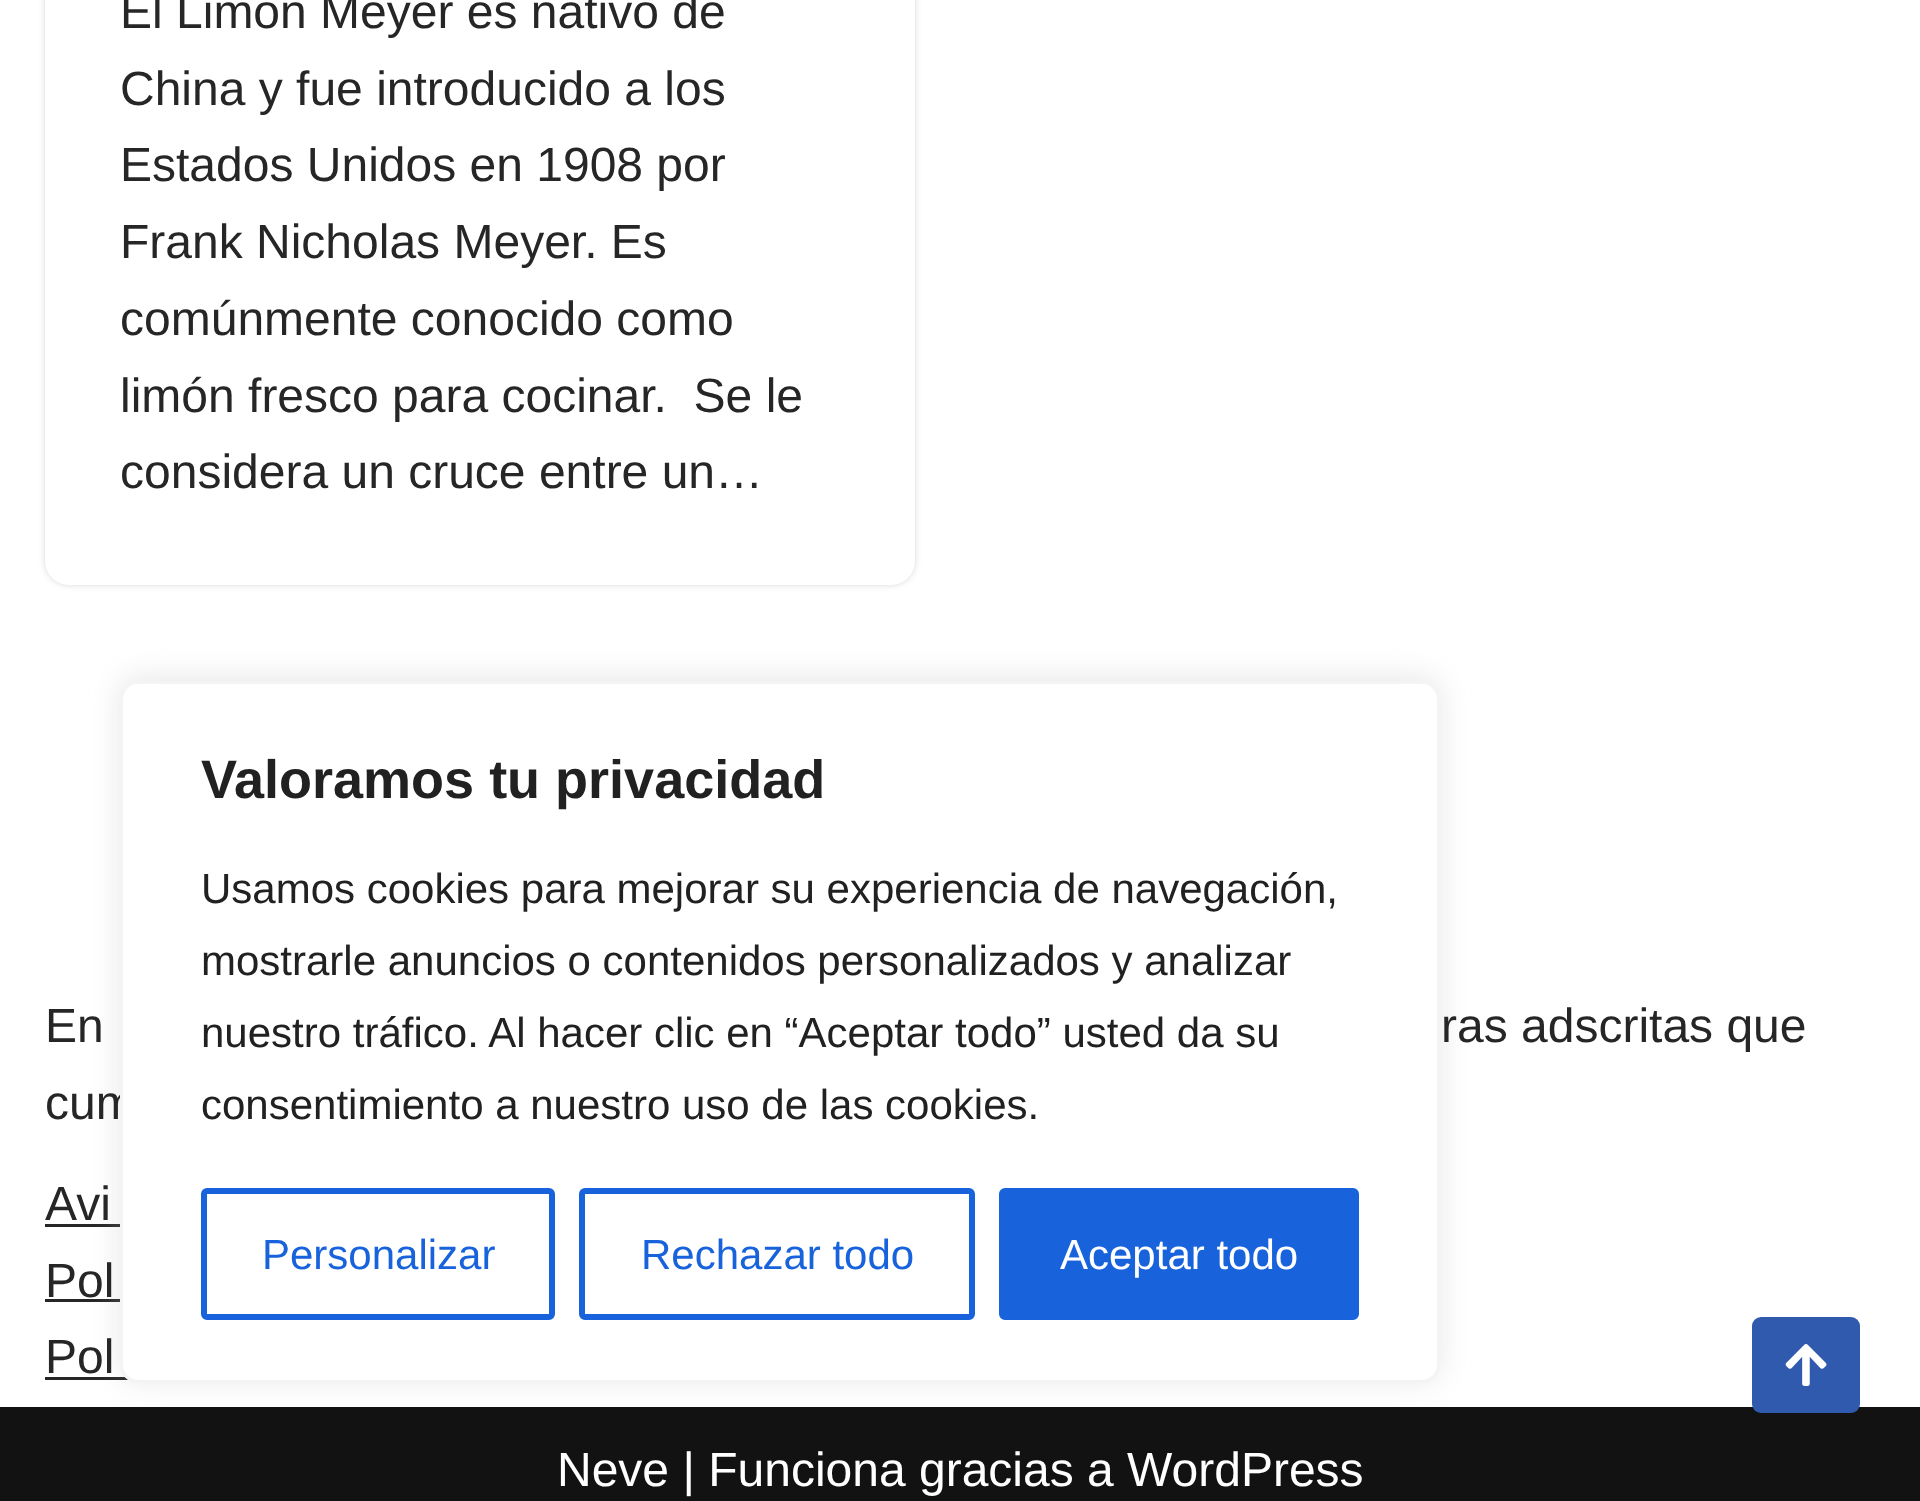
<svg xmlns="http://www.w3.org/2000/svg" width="1920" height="1501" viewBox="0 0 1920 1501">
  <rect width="100%" height="100%" fill="#fff"/>
  <rect x="45" y="-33" width="870" height="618" rx="24" fill="#00000026" filter="blur(3px)"/>
  <rect x="45" y="-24" width="870" height="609" rx="24" fill="#fff"/>
  <path d="M45 1224h75v3H45z" fill="#272626"/>
  <path d="M45 1299h75v3H45z" fill="#272626"/>
  <path d="M45 1377h83v3H45z" fill="#272626"/>
  <path d="M0 1407h1920v94H0z" fill="#121212"/>
  <rect x="1752" y="1317" width="108" height="96" rx="9" fill="#2f5aae"/>
  <image x="1785" y="1344" width="42" height="42" href="img/1.png"/>
  <rect x="120" y="678" width="1320" height="702" rx="18" fill="#acabab4d" filter="blur(15px)"/>
  <g font-family="Liberation Sans" font-size="48" fill="#272626">
    <text x="120" y="28">El Limón Meyer es nativo de</text>
    <text x="120" y="105">China y fue introducido a los</text>
    <text x="120" y="181">Estados Unidos en 1908 por</text>
    <text x="120" y="258">Frank Nicholas Meyer. Es</text>
    <text x="120" y="335">comúnmente conocido como</text>
    <text x="120" y="412" xml:space="preserve">limón fresco para cocinar.  Se le</text>
    <text x="120" y="488">considera un cruce entre un…</text>
    <text x="45" y="1042">En</text>
    <text x="1441" y="1042">ras adscritas que</text>
    <text x="45" y="1119">cum</text>
    <text x="45" y="1220">Avi</text>
    <text x="45" y="1297">Pol</text>
    <text x="45" y="1373">Pol</text>
  </g>
  <text x="557" y="1486" font-family="Liberation Sans" font-size="48" fill="#fff">Neve | Funciona gracias a WordPress</text>
  <rect x="121.5" y="682.5" width="1317" height="699" rx="16.5" fill="#fff" stroke="#f4f4f4" stroke-width="3"/>
  <text x="201" y="798" font-family="Liberation Sans" font-size="54" font-weight="bold" fill="#212121">Valoramos tu privacidad</text>
  <g font-family="Liberation Sans" font-size="42" fill="#212121">
    <text x="201" y="903">Usamos cookies para mejorar su experiencia de navegación,</text>
    <text x="201" y="975">mostrarle anuncios o contenidos personalizados y analizar</text>
    <text x="201" y="1047">nuestro tráfico. Al hacer clic en “Aceptar todo” usted da su</text>
    <text x="201" y="1119">consentimiento a nuestro uso de las cookies.</text>
  </g>
  <rect x="204" y="1191" width="348" height="126" rx="3" fill="none" stroke="#1863dc" stroke-width="6"/>
  <text x="262" y="1269" font-family="Liberation Sans" font-size="42" fill="#1863dc">Personalizar</text>
  <rect x="582" y="1191" width="390" height="126" rx="3" fill="none" stroke="#1863dc" stroke-width="6"/>
  <text x="641" y="1269" font-family="Liberation Sans" font-size="42" fill="#1863dc">Rechazar todo</text>
  <rect x="1002" y="1191" width="354" height="126" rx="3" fill="#1863dc" stroke="#1863dc" stroke-width="6"/>
  <text x="1060" y="1269" font-family="Liberation Sans" font-size="42" fill="#fff">Aceptar todo</text>
</svg>
